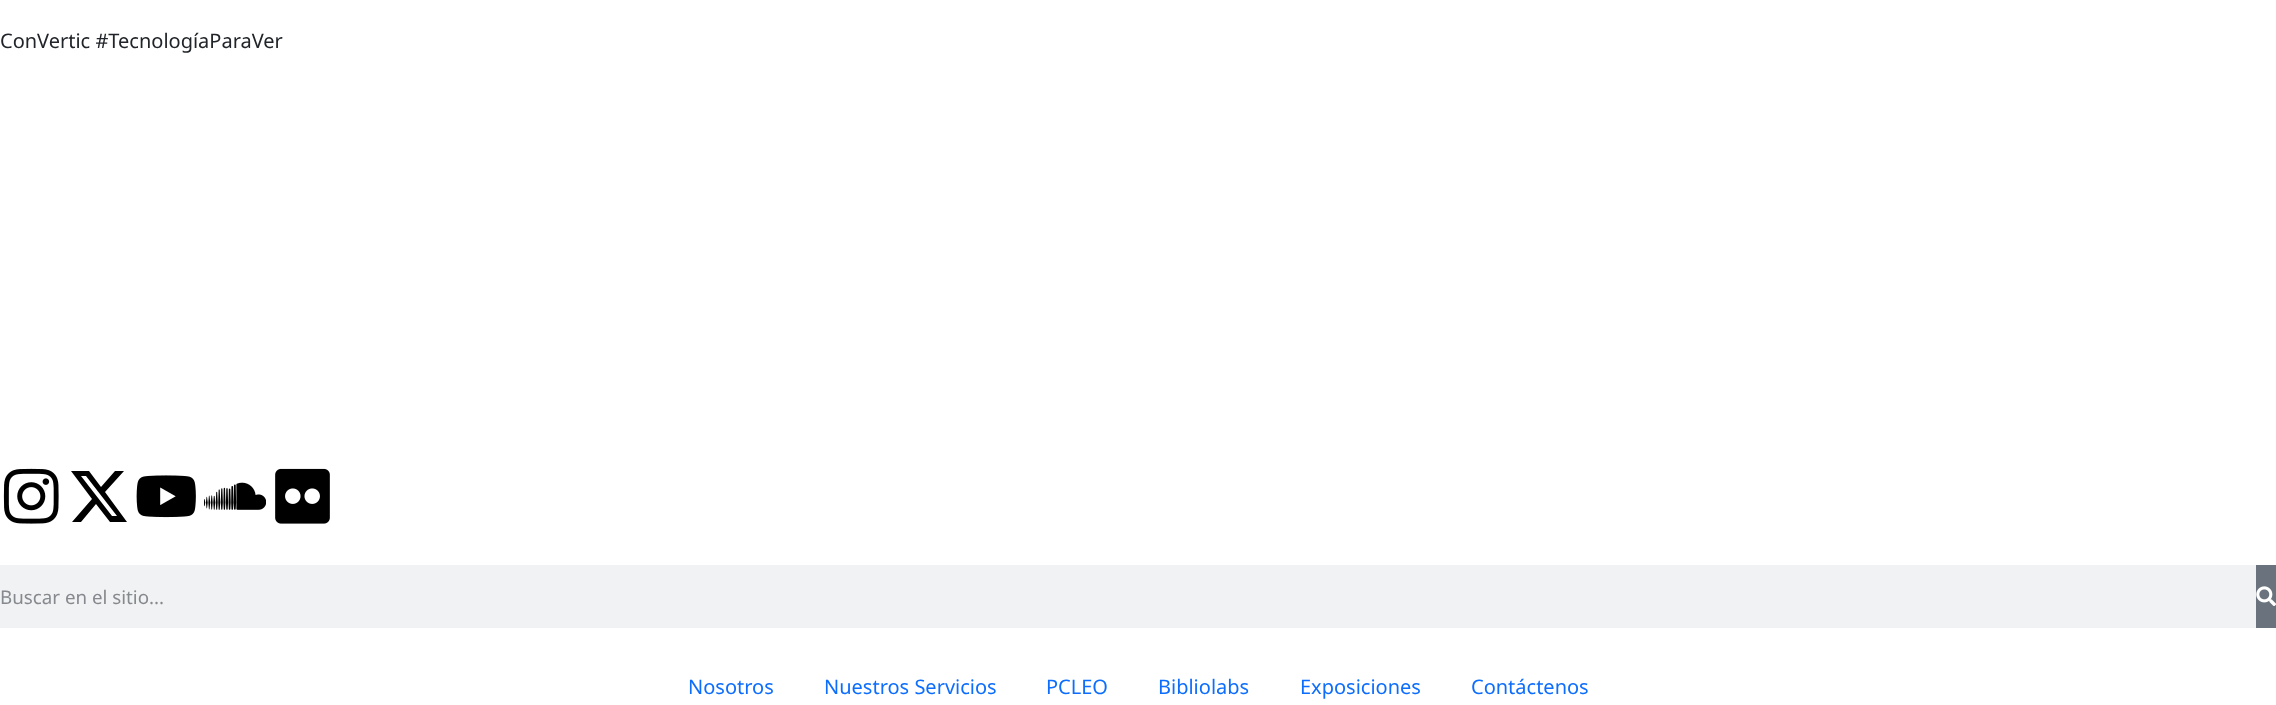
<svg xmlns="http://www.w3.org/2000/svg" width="2276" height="705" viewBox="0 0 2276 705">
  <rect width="100%" height="100%" fill="#fff"/>
  <image x="3" y="468" width="56" height="56" href="img/1.png"/>
  <path d="M115 471H124L105 492L127 522H110L96 504L81 522H72L92 499L71 471H89L101 487ZM112 516H117L86 476H81Z" fill="#000"/>
  <image x="136" y="475" width="60" height="43" href="img/2.png"/>
  <image x="204" y="482" width="62" height="28" href="img/3.png"/>
  <image x="275" y="468" width="55" height="56" href="img/4.png"/>
  <path d="M0 565h2256v63H0z" fill="#f1f2f3"/>
  <path d="M2256 565h20v63H2256z" fill="#69727d"/>
  <image x="2256" y="586" width="20" height="20" href="img/5.png"/>
  <text x="0" y="48" font-family="Noto Sans" font-size="20" fill="#212529">ConVertic #TecnologíaParaVer</text>
  <text x="0" y="604" font-family="Noto Sans" font-size="18.75" fill="#868a8e">Buscar en el sitio...</text>
  <g font-family="Noto Sans" font-size="20" fill="#0d6efd">
    <text x="688" y="694">Nosotros</text>
    <text x="824" y="694">Nuestros Servicios</text>
    <text x="1046" y="694">PCLEO</text>
    <text x="1158" y="694">Bibliolabs</text>
    <text x="1300" y="694">Exposiciones</text>
    <text x="1471" y="694">Contáctenos</text>
  </g>
</svg>
